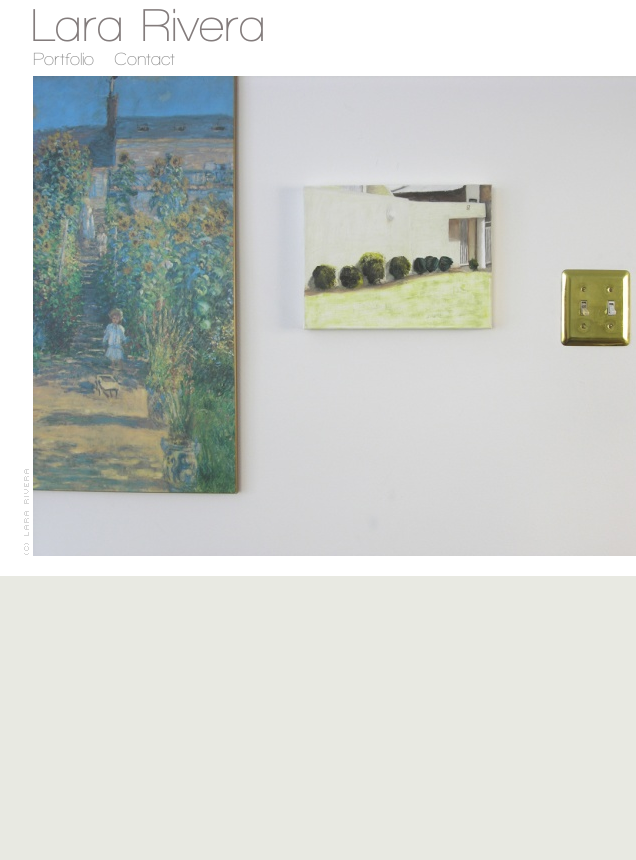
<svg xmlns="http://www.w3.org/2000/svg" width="636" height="860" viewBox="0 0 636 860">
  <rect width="100%" height="100%" fill="#e8e9e2"/>
  <path d="M0 0h636v576H0z" fill="#fff"/>
  <image x="33" y="8" width="230" height="34" href="img/1.png"/>
  <image x="33" y="52" width="61" height="14" href="img/2.png"/>
  <image x="114" y="52" width="61" height="14" href="img/3.png"/>
  <image x="24" y="469" width="5" height="86" href="img/4.png"/>
  <image x="33" y="76" width="603" height="480" href="img/5.png"/>
</svg>
